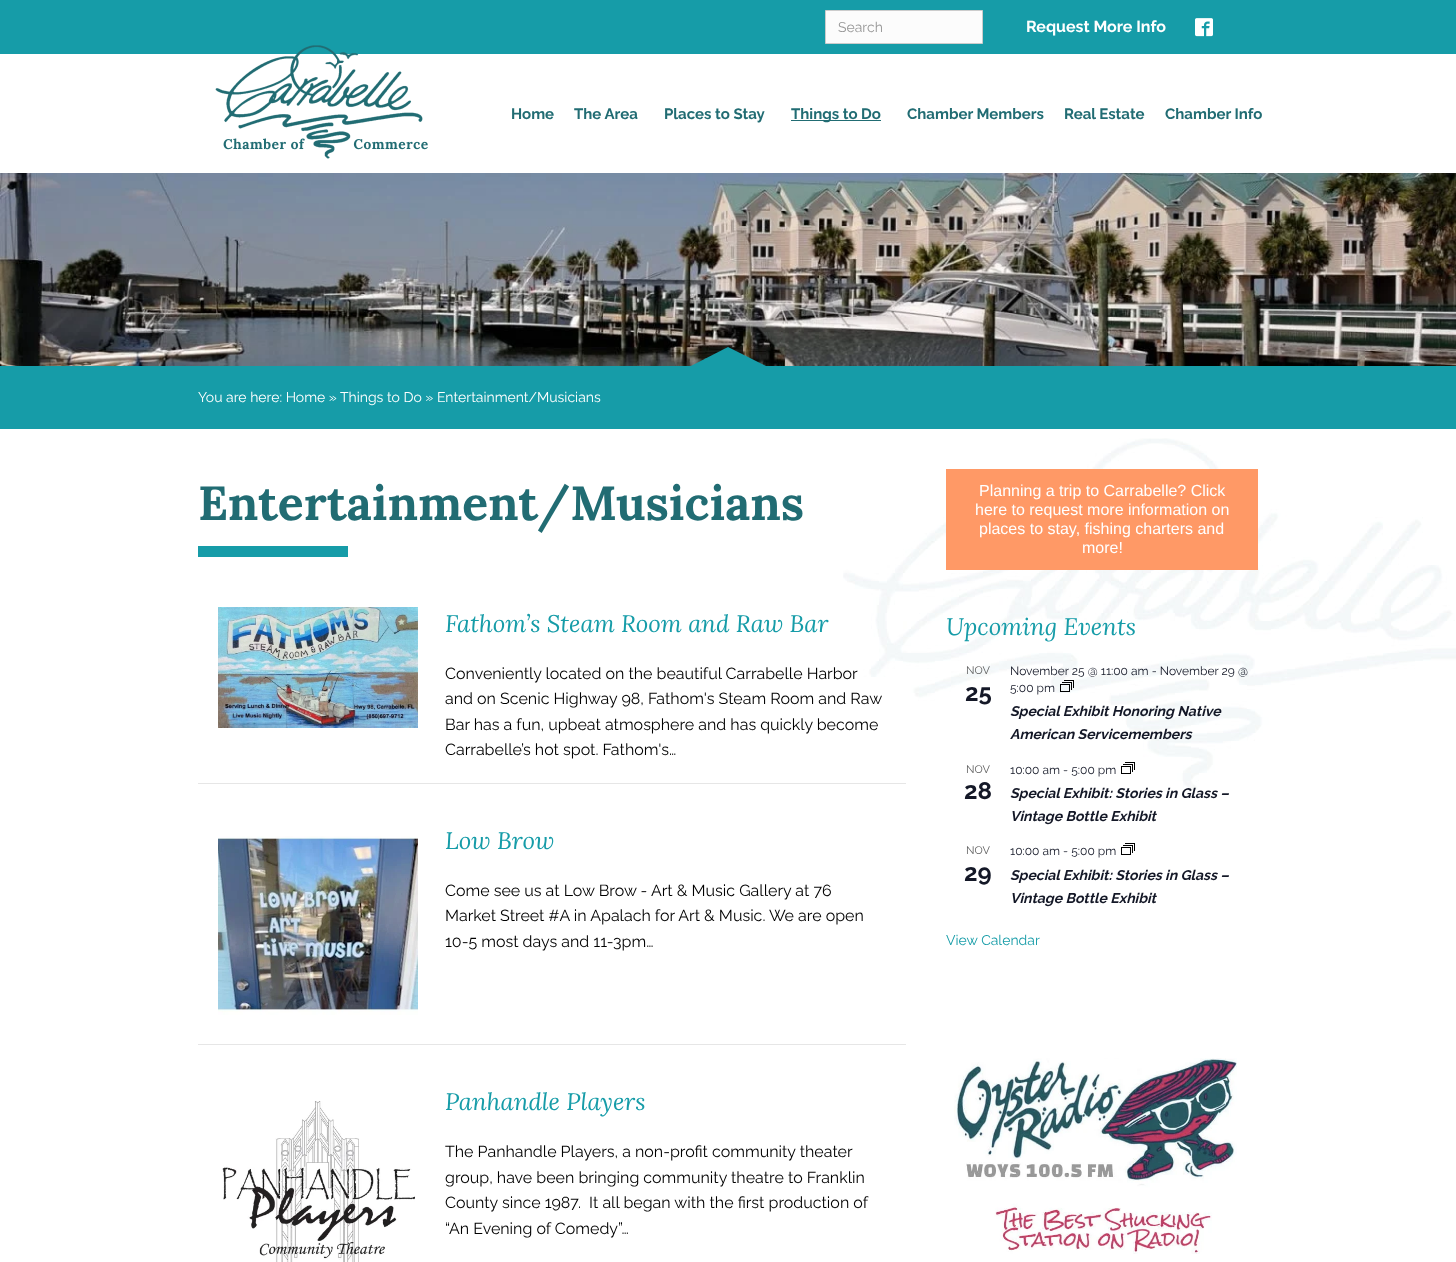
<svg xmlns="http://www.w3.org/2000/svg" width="1456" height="1262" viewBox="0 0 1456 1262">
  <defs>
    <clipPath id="clip1"><path d="M684 346h88v22H684z"/></clipPath>
  </defs>
  <rect width="100%" height="100%" fill="#fff"/>
  <path d="M0 0h1456v54H0z" fill="#169ca8"/>
  <path d="M825.5 10.5h157v33H825.5z" fill="#fcfcfc" stroke="#ccc"/>
  <image x="1195" y="18" width="18" height="19" href="img/1.png"/>
  <image x="215" y="45" width="213" height="114" href="img/2.png"/>
  <path d="M791 120h90v1H791z" fill="#216c73"/>
  <image x="0" y="173" width="1456" height="193" href="img/3.png"/>
  <path d="M0 366h1456v63H0z" fill="#169ca8"/>
  <g clip-path="url(#clip1)">
    <path d="M728 347L772 369H685Z" fill="#169ca8"/>
  </g>
  <image x="843" y="438" width="613" height="353" href="img/4.png"/>
  <path d="M198 546h150v11H198z" fill="#169ca8"/>
  <path d="M198 783h708v1H198z" fill="#e6e6e6"/>
  <image x="218" y="607" width="200" height="121" href="img/5.png"/>
  <path d="M198 1044h708v1H198z" fill="#e6e6e6"/>
  <image x="218" y="836" width="200" height="179" href="img/6.png"/>
  <image x="222" y="1101" width="193" height="161" href="img/7.png"/>
  <path d="M946 469h312v101H946z" fill="#f96"/>
  <image x="1060" y="680" width="14" height="12" href="img/8.png"/>
  <image x="1121" y="762" width="14" height="12" href="img/9.png"/>
  <image x="1121" y="843" width="14" height="12" href="img/9.png"/>
  <image x="954" y="1058" width="283" height="196" href="img/10.png"/>
  <text x="838" y="32" font-family="Raleway" font-size="14" fill="#979797">Search</text>
  <text x="1026" y="32" font-family="Raleway" font-size="16" font-weight="bold" fill="#fff">Request More Info</text>
  <g font-family="Raleway" font-size="15" font-weight="bold" fill="#216c73">
    <text x="511" y="119">Home</text>
    <text x="574" y="119">The Area</text>
    <text x="664" y="119">Places to Stay</text>
    <text x="791" y="119">Things to Do</text>
    <text x="907" y="119">Chamber Members</text>
    <text x="1064" y="119">Real Estate</text>
    <text x="1165" y="119">Chamber Info</text>
  </g>
  <text x="198" y="402" font-family="Raleway" font-size="14" fill="#fff">You are here: Home » Things to Do » Entertainment/Musicians</text>
  <text x="198" y="520" font-family="Lora" font-size="48" font-weight="bold" fill="#216c73">Entertainment/Musicians</text>
  <text x="445" y="632" font-family="Lora" font-size="24" font-style="italic" fill="#169ca8">Fathom’s Steam Room and Raw Bar</text>
  <g font-family="Raleway" font-size="16" fill="#000">
    <text x="445" y="679">Conveniently located on the beautiful Carrabelle Harbor</text>
    <text x="445" y="704">and on Scenic Highway 98, Fathom's Steam Room and Raw</text>
    <text x="445" y="730">Bar has a fun, upbeat atmosphere and has quickly become</text>
    <text x="445" y="755">Carrabelle’s hot spot. Fathom's…</text>
  </g>
  <text x="445" y="849" font-family="Lora" font-size="24" font-style="italic" fill="#169ca8">Low Brow</text>
  <g font-family="Raleway" font-size="16" fill="#000">
    <text x="445" y="896">Come see us at Low Brow - Art &amp; Music Gallery at 76</text>
    <text x="445" y="921">Market Street #A in Apalach for Art &amp; Music. We are open</text>
    <text x="445" y="947">10-5 most days and 11-3pm…</text>
  </g>
  <text x="445" y="1110" font-family="Lora" font-size="24" font-style="italic" fill="#169ca8">Panhandle Players</text>
  <g font-family="Raleway" font-size="16" fill="#000">
    <text x="445" y="1157">The Panhandle Players, a non-profit community theater</text>
    <text x="445" y="1183">group, have been bringing community theatre to Franklin</text>
    <text x="445" y="1208" xml:space="preserve">County since 1987.  It all began with the first production of</text>
    <text x="445" y="1234">“An Evening of Comedy”…</text>
  </g>
  <g font-family="Liberation Sans" font-size="16" fill="#fff">
    <text x="979" y="496">Planning a trip to Carrabelle? Click</text>
    <text x="975" y="515">here to request more information on</text>
    <text x="979" y="534">places to stay, fishing charters and</text>
    <text x="1082" y="553">more!</text>
  </g>
  <text x="946" y="635" font-family="Lora" font-size="24" font-style="italic" fill="#169ca8">Upcoming Events</text>
  <text x="966" y="674" font-family="Raleway" font-size="11" fill="#5d5d5d">NOV</text>
  <text x="965" y="701" font-family="Raleway" font-size="24" font-weight="bold" fill="#141827">25</text>
  <g font-family="Raleway" font-size="12" fill="#141827">
    <text x="1010" y="675">November 25 @ 11:00 am - November 29 @</text>
    <text x="1010" y="692">5:00 pm</text>
  </g>
  <g font-family="Raleway" font-size="14" font-weight="bold" font-style="italic" fill="#141827">
    <text x="1010" y="716">Special Exhibit Honoring Native</text>
    <text x="1010" y="739">American Servicemembers</text>
  </g>
  <text x="966" y="773" font-family="Raleway" font-size="11" fill="#5d5d5d">NOV</text>
  <text x="964" y="799" font-family="Raleway" font-size="24" font-weight="bold" fill="#141827">28</text>
  <text x="1010" y="774" font-family="Raleway" font-size="12" fill="#141827">10:00 am - 5:00 pm</text>
  <g font-family="Raleway" font-size="14" font-weight="bold" font-style="italic" fill="#141827">
    <text x="1010" y="798">Special Exhibit: Stories in Glass –</text>
    <text x="1010" y="821">Vintage Bottle Exhibit</text>
  </g>
  <text x="966" y="854" font-family="Raleway" font-size="11" fill="#5d5d5d">NOV</text>
  <text x="964" y="881" font-family="Raleway" font-size="24" font-weight="bold" fill="#141827">29</text>
  <text x="1010" y="855" font-family="Raleway" font-size="12" fill="#141827">10:00 am - 5:00 pm</text>
  <g font-family="Raleway" font-size="14" font-weight="bold" font-style="italic" fill="#141827">
    <text x="1010" y="880">Special Exhibit: Stories in Glass –</text>
    <text x="1010" y="903">Vintage Bottle Exhibit</text>
  </g>
  <text x="946" y="945" font-family="Raleway" font-size="14" fill="#169ca8">View Calendar</text>
</svg>
